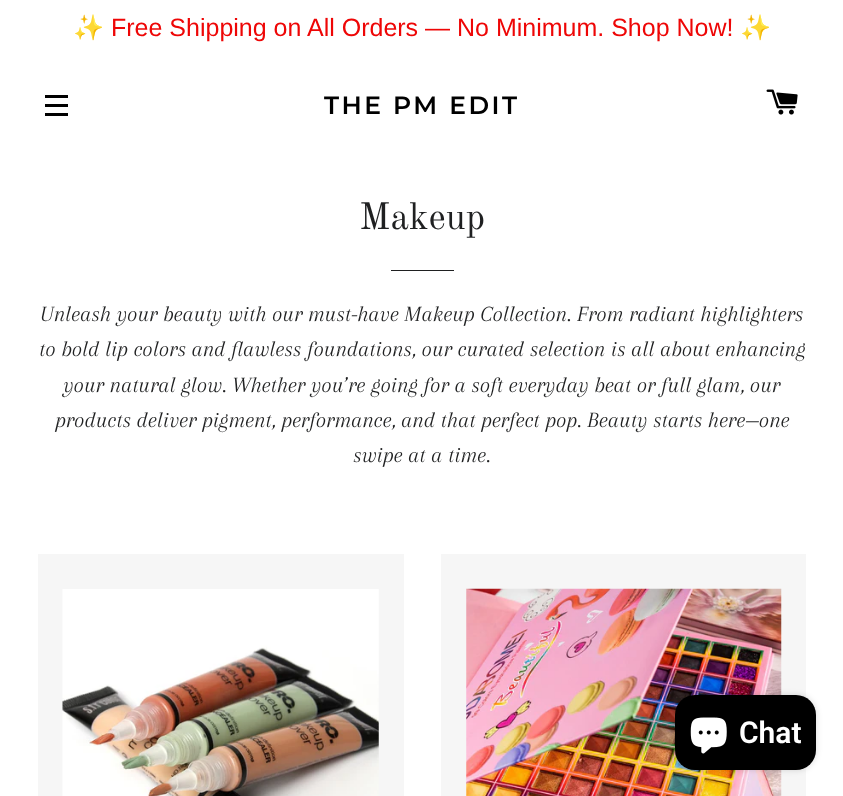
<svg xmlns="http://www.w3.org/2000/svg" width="843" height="796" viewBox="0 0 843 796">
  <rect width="100%" height="100%" fill="#fff"/>
  <path d="M45 95h23v3H45z" fill="#000"/>
  <path d="M45 104h23v3H45z" fill="#000"/>
  <path d="M45 113h23v3H45z" fill="#000"/>
  <image x="766" y="89" width="32" height="26" href="img/1.png"/>
  <path d="M391 270h63v1H391z" fill="#1f2021"/>
  <path d="M38 554h366v242H38z" fill="#f6f6f6"/>
  <image x="62" y="589" width="317" height="207" href="img/2.png"/>
  <path d="M441 554h365v242H441z" fill="#f6f6f6"/>
  <image x="466" y="588" width="316" height="208" href="img/3.png"/>
  <rect x="675" y="695" width="141" height="75" rx="20" fill="#00000026" filter="blur(3px)"/>
  <rect x="675" y="695" width="141" height="75" rx="20" fill="#000"/>
  <image x="690" y="717" width="37" height="37" href="img/4.png"/>
  <text x="73" y="36" font-family="Noto Color Emoji" font-size="25" fill="#ee0606">✨</text>
  <text x="111" y="36" font-family="Liberation Sans" font-size="25" fill="#ee0606">Free Shipping on All Orders — No Minimum. Shop Now!</text>
  <text x="740" y="36" font-family="Noto Color Emoji" font-size="25" fill="#ee0606">✨</text>
  <text x="324" y="114" font-family="Montserrat" font-size="25" font-weight="600" letter-spacing="2.5" fill="#000">THE PM EDIT</text>
  <text x="359" y="229" font-family="Old Standard TT" font-size="37.5" fill="#1f2021">Makeup</text>
  <g font-family="Arapey" font-size="22.5" font-style="italic" fill="#1f2021">
    <text x="40" y="321">Unleash your beauty with our must-have Makeup Collection. From radiant highlighters</text>
    <text x="39" y="356">to bold lip colors and flawless foundations, our curated selection is all about enhancing</text>
    <text x="63" y="392">your natural glow. Whether you’re going for a soft everyday beat or full glam, our</text>
    <text x="55" y="427">products deliver pigment, performance, and that perfect pop. Beauty starts here—one</text>
    <text x="353" y="462">swipe at a time.</text>
  </g>
  <text x="739" y="743" font-family="Roboto" font-size="30" font-weight="600" fill="#fff">Chat</text>
</svg>
